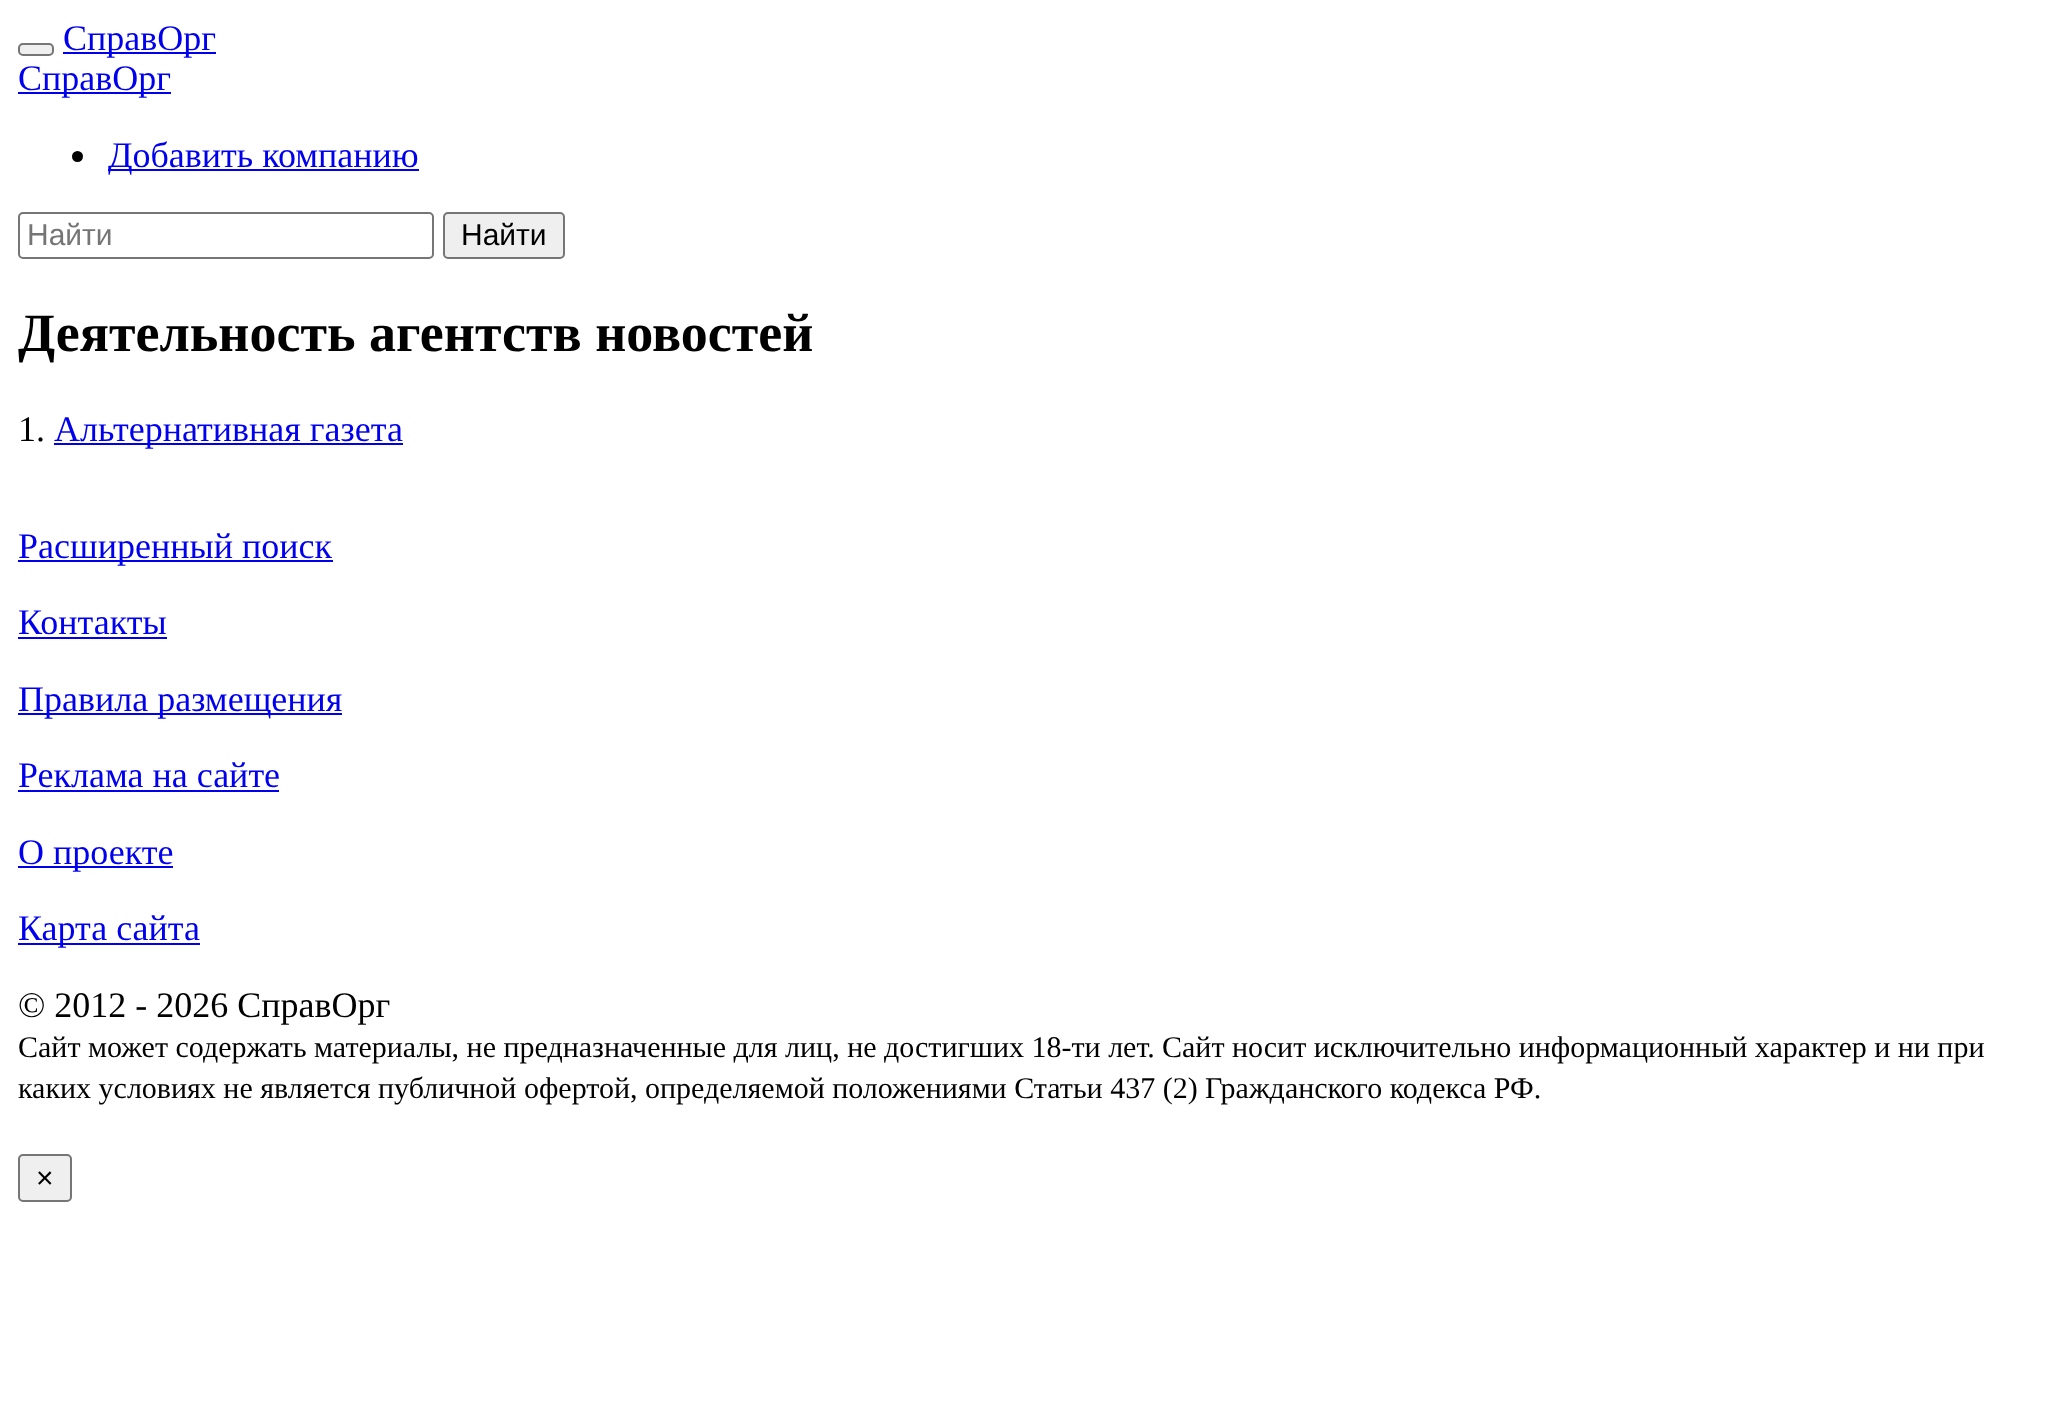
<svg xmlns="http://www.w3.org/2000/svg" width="2063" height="1421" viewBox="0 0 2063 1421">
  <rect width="100%" height="100%" fill="#fff"/>
  <rect x="19" y="44" width="34" height="11" rx="4" fill="#efefef" stroke="#767676" stroke-width="2"/>
  <path d="M63 52h153v2H63z" fill="#00e"/>
  <path d="M18 92h153v2H18z" fill="#00e"/>
  <circle cx="77.5" cy="156.5" r="5.5" fill="#000"/>
  <path d="M108 169h311v2H108z" fill="#00e"/>
  <rect x="19" y="213" width="414" height="45" rx="4" fill="none" stroke="#767676" stroke-width="2"/>
  <rect x="444" y="213" width="120" height="45" rx="4" fill="#efefef" stroke="#767676" stroke-width="2"/>
  <path d="M54 443h349v2H54z" fill="#00e"/>
  <path d="M18 560h315v2H18z" fill="#00e"/>
  <path d="M18 637h149v2H18z" fill="#00e"/>
  <path d="M18 713h324v2H18z" fill="#00e"/>
  <path d="M18 790h261v2H18z" fill="#00e"/>
  <path d="M18 866h155v2H18z" fill="#00e"/>
  <path d="M18 943h182v2H18z" fill="#00e"/>
  <rect x="19" y="1155" width="52" height="46" rx="4" fill="#efefef" stroke="#767676" stroke-width="2"/>
  <g font-family="Liberation Serif" font-size="36" fill="#00e">
    <text x="63" y="50">СправОрг</text>
    <text x="18" y="90">СправОрг</text>
    <text x="108" y="167">Добавить компанию</text>
  </g>
  <text x="27" y="245" font-family="Liberation Sans" font-size="30" fill="#757575">Найти</text>
  <text x="461" y="245" font-family="Liberation Sans" font-size="30" fill="#000">Найти</text>
  <text x="18" y="351" font-family="Liberation Serif" font-size="54" font-weight="bold" fill="#000">Деятельность агентств новостей</text>
  <text x="18" y="441" font-family="Liberation Serif" font-size="36" fill="#000">1.</text>
  <g font-family="Liberation Serif" font-size="36" fill="#00e">
    <text x="54" y="441">Альтернативная газета</text>
    <text x="18" y="558">Расширенный поиск</text>
    <text x="18" y="634">Контакты</text>
    <text x="18" y="711">Правила размещения</text>
    <text x="18" y="787">Реклама на сайте</text>
    <text x="18" y="864">О проекте</text>
    <text x="18" y="940">Карта сайта</text>
  </g>
  <text x="18" y="1017" font-family="Liberation Serif" font-size="36" fill="#000">© 2012 - 2026 СправОрг</text>
  <g font-family="Liberation Serif" font-size="30" fill="#000">
    <text x="18" y="1057">Сайт может содержать материалы, не предназначенные для лиц, не достигших 18-ти лет.</text>
    <text x="1162" y="1057">Cайт носит исключительно информационный характер и ни при</text>
    <text x="18" y="1098">каких условиях не является публичной офертой, определяемой положениями Статьи 437 (2) Гражданского кодекса РФ.</text>
  </g>
  <text x="36" y="1188" font-family="Liberation Sans" font-size="30" fill="#000">×</text>
</svg>
